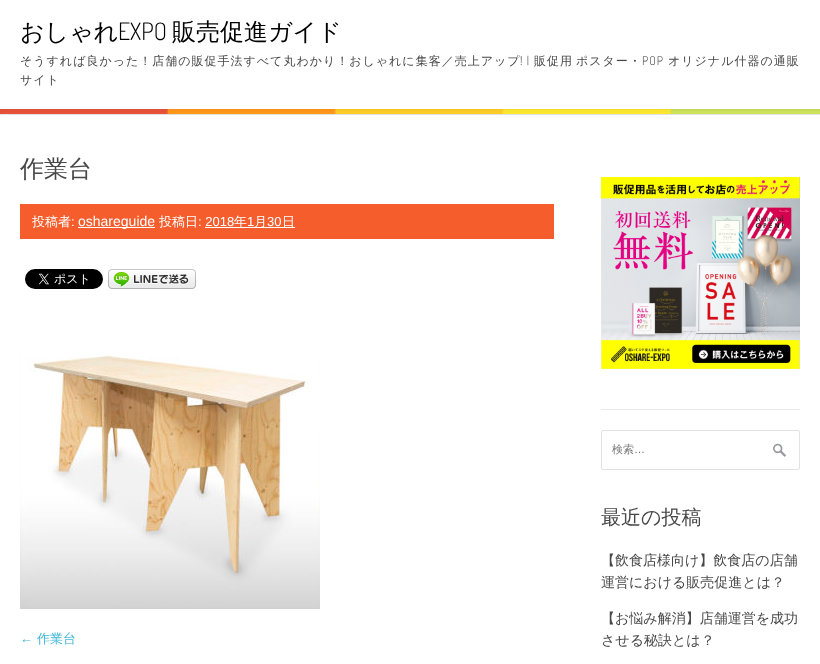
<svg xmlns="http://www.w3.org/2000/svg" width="820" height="664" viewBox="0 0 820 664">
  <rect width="100%" height="100%" fill="#fff"/>
  <image x="0" y="109" width="820" height="5" href="img/1.png"/>
  <path d="M0 114h820v1H0z" fill="#e2e2e2"/>
  <path d="M20 204h534v35H20z" fill="#f55d2d"/>
  <path d="M78 227h77v1H78z" fill="#fff"/>
  <path d="M205 227h90v1H205z" fill="#fff"/>
  <image x="25" y="269" width="78" height="20" href="img/2.png"/>
  <image x="108" y="269" width="88" height="20" href="img/3.png"/>
  <image x="20" y="354" width="300" height="255" href="img/4.png"/>
  <path d="M601 409h199v1H601z" fill="#eaeaea"/>
  <image x="601" y="177" width="199" height="192" href="img/5.png"/>
  <image x="773" y="443" width="13" height="14" href="img/6.png"/>
  <rect x="601.5" y="430.5" width="198" height="39" rx="1.5" fill="none" stroke="#e2e2e2"/>
  <text x="20" y="40" font-family="WenQuanYi Zen Hei" font-size="24" font-weight="500" fill="#000">おしゃれ</text>
  <text x="118" y="40" font-family="Dosis" font-size="24" font-weight="300" fill="#000">EXPO</text>
  <text x="172" y="40" font-family="WenQuanYi Zen Hei" font-size="24" font-weight="500" fill="#000">販売促進ガイド</text>
  <text x="20" y="65" font-family="WenQuanYi Zen Hei" font-size="12" font-weight="500" letter-spacing="1" fill="#474747">そうすれば良かった！店舗の販促手法すべて丸わかり！おしゃれに集客／売上アップ</text>
  <text x="520" y="65" font-family="Dosis" font-size="12" font-weight="300" letter-spacing="1" fill="#474747">! |</text>
  <g font-family="WenQuanYi Zen Hei" font-size="12" font-weight="500" letter-spacing="1" fill="#474747">
    <text x="534" y="65">販促用</text>
    <text x="576" y="65">ポスター・</text>
  </g>
  <text x="642" y="65" font-family="Dosis" font-size="12" font-weight="300" letter-spacing="1" fill="#474747">POP</text>
  <g font-family="WenQuanYi Zen Hei" font-size="12" font-weight="500" letter-spacing="1" fill="#474747">
    <text x="668" y="65">オリジナル什器の通販</text>
    <text x="20" y="84">サイト</text>
  </g>
  <text x="20" y="177" font-family="WenQuanYi Zen Hei" font-size="24" font-weight="500" fill="#474747">作業台</text>
  <text x="32" y="226" font-family="WenQuanYi Zen Hei" font-size="13" font-weight="500" fill="#fff">投稿者</text>
  <text x="71" y="226" font-family="Liberation Sans" font-size="13" fill="#fff">:</text>
  <text x="78" y="226" font-family="Liberation Sans" font-size="14" fill="#fff">oshareguide</text>
  <text x="159" y="226" font-family="WenQuanYi Zen Hei" font-size="13" font-weight="500" fill="#fff">投稿日</text>
  <text x="198" y="226" font-family="Liberation Sans" font-size="13" fill="#fff">: 2018</text>
  <text x="234" y="226" font-family="WenQuanYi Zen Hei" font-size="13" font-weight="500" fill="#fff">年</text>
  <text x="247" y="226" font-family="Liberation Sans" font-size="13" fill="#fff">1</text>
  <text x="254" y="226" font-family="WenQuanYi Zen Hei" font-size="13" font-weight="500" fill="#fff">月</text>
  <text x="267" y="226" font-family="Liberation Sans" font-size="13" fill="#fff">30</text>
  <text x="282" y="226" font-family="WenQuanYi Zen Hei" font-size="13" font-weight="500" fill="#fff">日</text>
  <text x="20" y="643" font-family="Liberation Sans" font-size="13" fill="#41b7d8">←</text>
  <text x="37" y="643" font-family="WenQuanYi Zen Hei" font-size="13" font-weight="500" fill="#41b7d8">作業台</text>
  <text x="612" y="453" font-family="WenQuanYi Zen Hei" font-size="11" font-weight="500" fill="#757575">検索</text>
  <text x="634" y="453" font-family="Liberation Sans" font-size="11" fill="#757575">…</text>
  <text x="601" y="524" font-family="WenQuanYi Zen Hei" font-size="20" font-weight="500" fill="#474747">最近の投稿</text>
  <g font-family="WenQuanYi Zen Hei" font-size="14" font-weight="500" fill="#474747">
    <text x="601" y="565">【飲食店様向け】飲食店の店舗</text>
    <text x="601" y="587">運営における販売促進とは？</text>
    <text x="601" y="623">【お悩み解消】店舗運営を成功</text>
    <text x="601" y="645">させる秘訣とは？</text>
  </g>
</svg>
